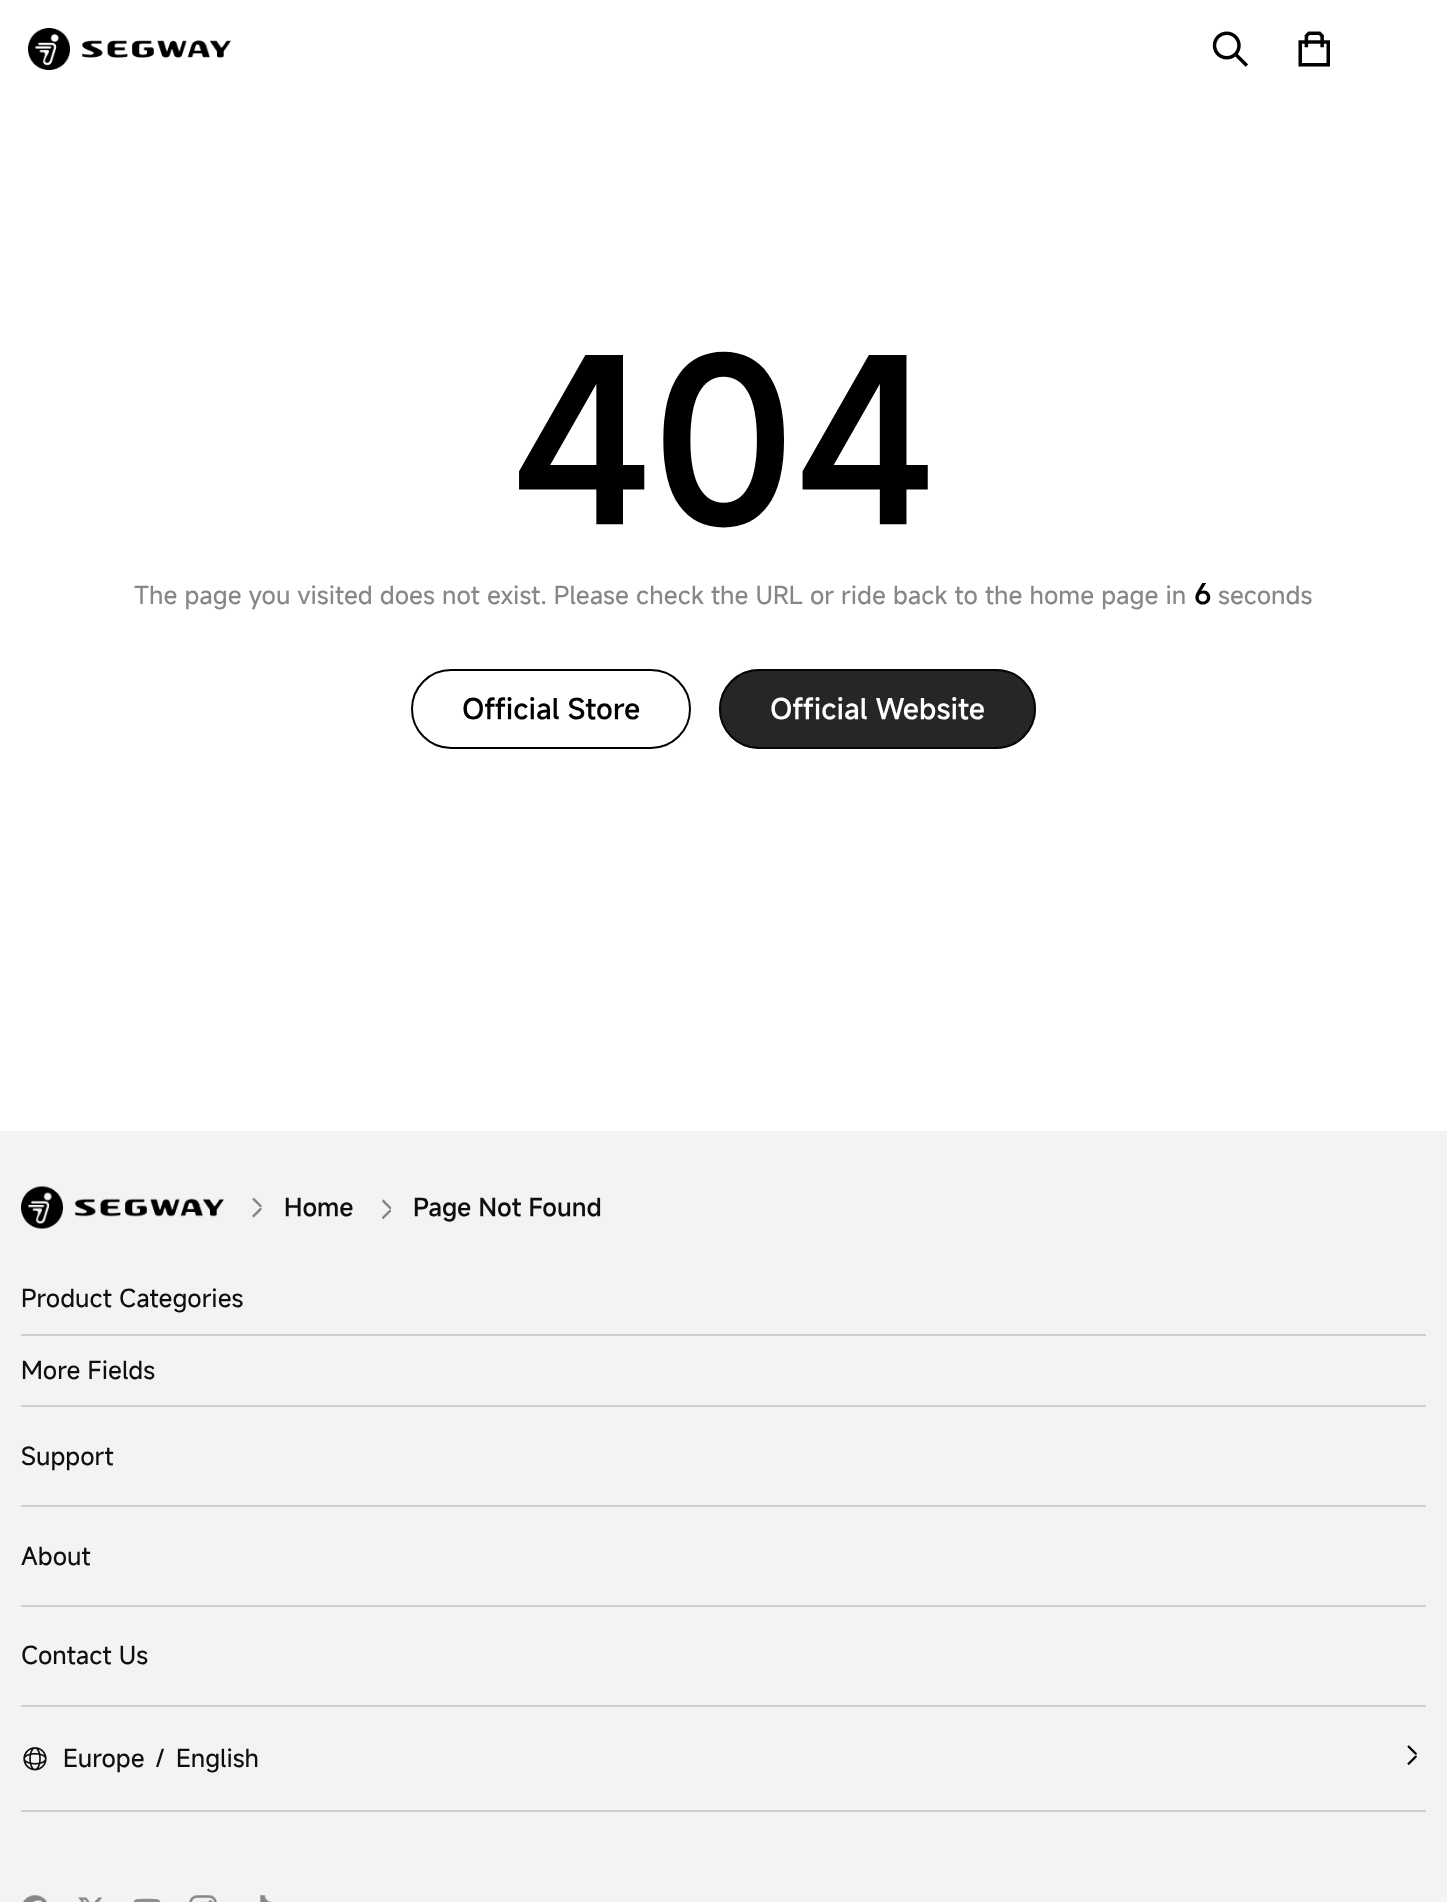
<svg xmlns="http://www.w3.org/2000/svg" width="1447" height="1902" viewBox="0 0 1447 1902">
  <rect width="100%" height="100%" fill="#fff"/>
  <image x="28" y="28" width="42" height="42" href="img/1.png"/>
  <image x="82" y="40" width="149" height="18" href="img/2.png"/>
  <image x="1212" y="31" width="36" height="36" href="img/3.png"/>
  <image x="1298" y="31" width="32" height="36" href="img/4.png"/>
  <rect x="412" y="670" width="278" height="78" rx="39" fill="none" stroke="#000" stroke-width="2"/>
  <rect x="719" y="669" width="317" height="80" rx="40" fill="#262626"/>
  <rect x="720" y="670" width="315" height="78" rx="39" fill="none" stroke="#000000d9" stroke-width="2"/>
  <path d="M0 1131h1447v771H0z" fill="#f3f3f4"/>
  <image x="21" y="1186" width="42" height="43" href="img/5.png"/>
  <image x="75" y="1198" width="149" height="19" href="img/6.png"/>
  <image x="252" y="1197" width="10" height="21" href="img/7.png"/>
  <image x="382" y="1199" width="10" height="21" href="img/8.png"/>
  <path d="M21 1334h1405v2H21z" fill="#cfcfcf"/>
  <path d="M21 1405h1405v2H21z" fill="#cfcfcf"/>
  <path d="M21 1505h1405v2H21z" fill="#cfcfcf"/>
  <path d="M21 1605h1405v2H21z" fill="#cfcfcf"/>
  <path d="M21 1705h1405v2H21z" fill="#cfcfcf"/>
  <path d="M21 1810h1405v2H21z" fill="#cfcfcf"/>
  <image x="23" y="1747" width="24" height="24" href="img/9.png"/>
  <image x="1407" y="1745" width="10" height="20" href="img/10.png"/>
  <image x="22" y="1895" width="26" height="7" href="img/11.png"/>
  <image x="78" y="1897" width="25" height="5" href="img/12.png"/>
  <image x="133" y="1898" width="28" height="4" href="img/13.png"/>
  <image x="189" y="1895" width="28" height="7" href="img/14.png"/>
  <image x="260" y="1895" width="12" height="7" href="img/15.png"/>
  <text x="513" y="523" font-family="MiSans" font-size="224" font-weight="600" fill="#000">404</text>
  <text x="134" y="604" font-family="MiSans" font-size="24.5" font-weight="500" fill="#86868b">The page you visited does not exist. Please check the URL or ride back to the home page in</text>
  <text x="1194" y="604" font-family="MiSans" font-size="28" font-weight="600" fill="#000">6</text>
  <text x="1218" y="604" font-family="MiSans" font-size="24.5" font-weight="500" fill="#86868b">seconds</text>
  <text x="462" y="719" font-family="MiSans" font-size="28" font-weight="600" fill="#000">Official Store</text>
  <text x="770" y="719" font-family="MiSans" font-size="28" font-weight="600" fill="#fff">Official Website</text>
  <g font-family="MiSans" font-size="24.5" font-weight="600" fill="#0f0f0f">
    <text x="284" y="1216">Home</text>
    <text x="413" y="1216">Page Not Found</text>
  </g>
  <g font-family="MiSans" font-size="24.5" font-weight="500" fill="#0f0f0f">
    <text x="21" y="1307">Product Categories</text>
    <text x="21" y="1379">More Fields</text>
    <text x="21" y="1465">Support</text>
    <text x="21" y="1565">About</text>
    <text x="21" y="1664">Contact Us</text>
    <text x="63" y="1767">Europe</text>
    <text x="155" y="1767">/</text>
    <text x="176" y="1767">English</text>
  </g>
</svg>
